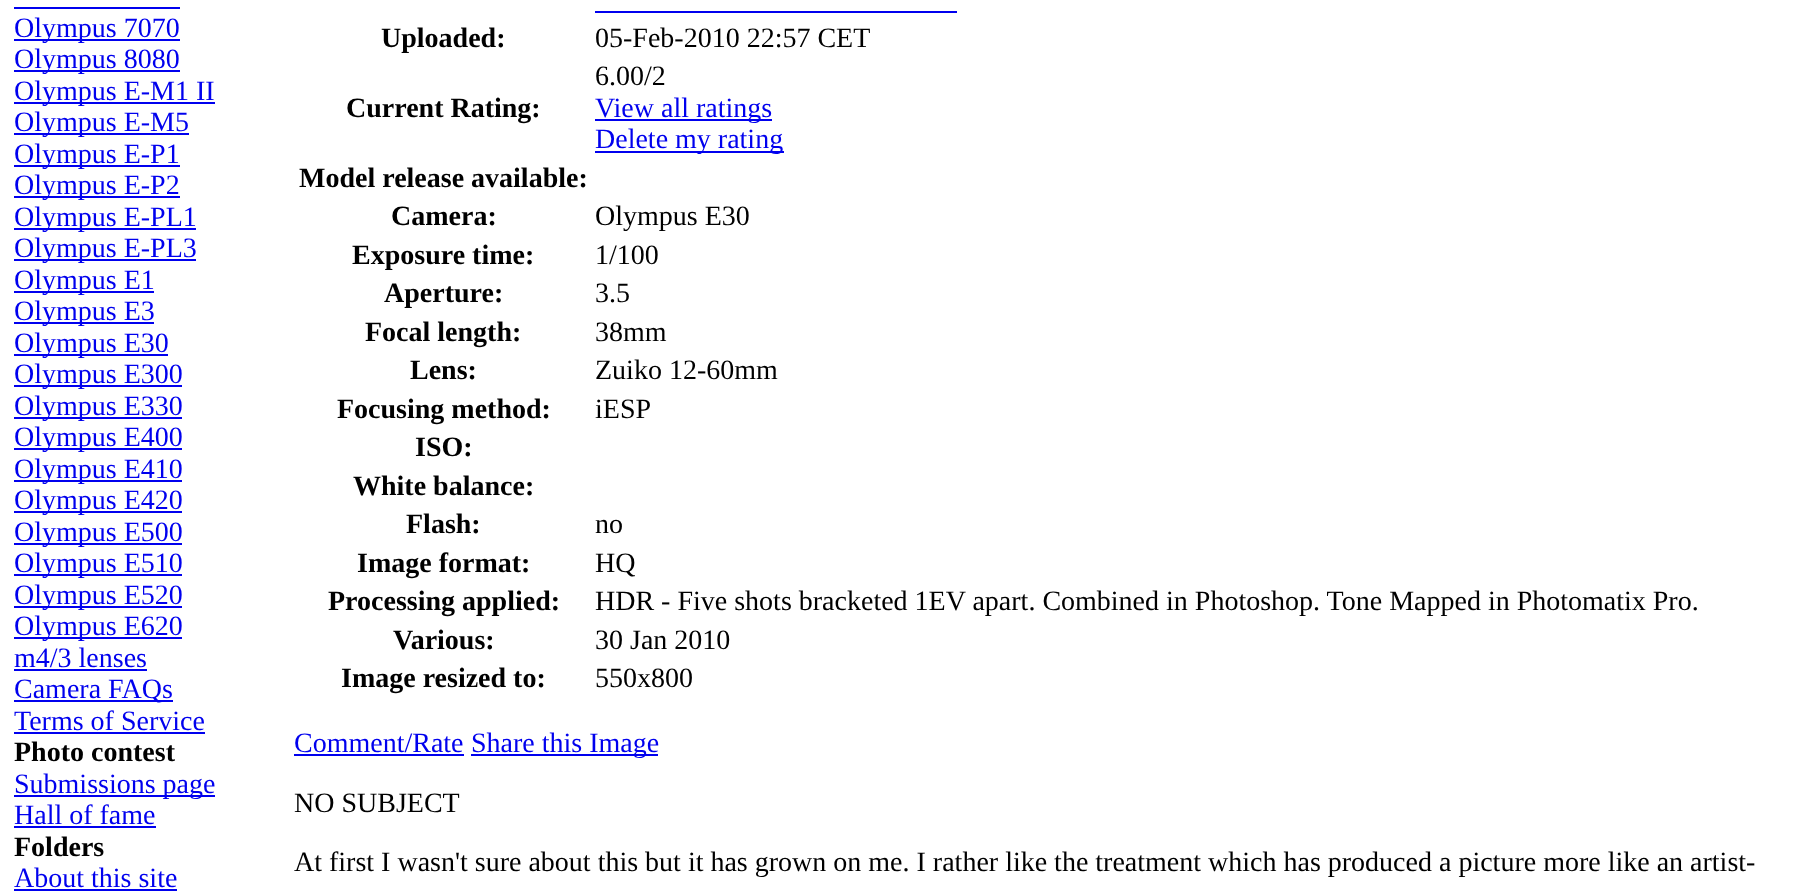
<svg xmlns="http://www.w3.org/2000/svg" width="1809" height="893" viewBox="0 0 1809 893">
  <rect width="100%" height="100%" fill="#fff"/>
  <path d="M14 7h166v2H14z" fill="#00e"/>
  <path d="M14 39h166v2H14z" fill="#00e"/>
  <path d="M14 70h166v2H14z" fill="#00e"/>
  <path d="M14 102h201v2H14z" fill="#00e"/>
  <path d="M14 133h175v2H14z" fill="#00e"/>
  <path d="M14 165h166v2H14z" fill="#00e"/>
  <path d="M14 196h166v2H14z" fill="#00e"/>
  <path d="M14 228h182v2H14z" fill="#00e"/>
  <path d="M14 259h182v2H14z" fill="#00e"/>
  <path d="M14 291h140v2H14z" fill="#00e"/>
  <path d="M14 322h140v2H14z" fill="#00e"/>
  <path d="M14 354h154v2H14z" fill="#00e"/>
  <path d="M14 385h168v2H14z" fill="#00e"/>
  <path d="M14 417h168v2H14z" fill="#00e"/>
  <path d="M14 448h168v2H14z" fill="#00e"/>
  <path d="M14 480h168v2H14z" fill="#00e"/>
  <path d="M14 511h168v2H14z" fill="#00e"/>
  <path d="M14 543h168v2H14z" fill="#00e"/>
  <path d="M14 574h168v2H14z" fill="#00e"/>
  <path d="M14 606h168v2H14z" fill="#00e"/>
  <path d="M14 637h168v2H14z" fill="#00e"/>
  <path d="M14 669h133v2H14z" fill="#00e"/>
  <path d="M14 700h159v2H14z" fill="#00e"/>
  <path d="M14 732h191v2H14z" fill="#00e"/>
  <path d="M14 795h201v2H14z" fill="#00e"/>
  <path d="M14 826h142v2H14z" fill="#00e"/>
  <path d="M14 889h163v2H14z" fill="#00e"/>
  <path d="M595 11h362v2H595z" fill="#00e"/>
  <path d="M595 119h177v2H595z" fill="#00e"/>
  <path d="M595 151h189v2H595z" fill="#00e"/>
  <path d="M294 754h170v2H294z" fill="#00e"/>
  <path d="M471 754h187v2H471z" fill="#00e"/>
  <g font-family="Liberation Serif" font-size="28" fill="#00e">
    <text x="14" y="37">Olympus 7070</text>
    <text x="14" y="68">Olympus 8080</text>
    <text x="14" y="100">Olympus E-M1 II</text>
    <text x="14" y="131">Olympus E-M5</text>
    <text x="14" y="163">Olympus E-P1</text>
    <text x="14" y="194">Olympus E-P2</text>
    <text x="14" y="226">Olympus E-PL1</text>
    <text x="14" y="257">Olympus E-PL3</text>
    <text x="14" y="289">Olympus E1</text>
    <text x="14" y="320">Olympus E3</text>
    <text x="14" y="352">Olympus E30</text>
    <text x="14" y="383">Olympus E300</text>
    <text x="14" y="415">Olympus E330</text>
    <text x="14" y="446">Olympus E400</text>
    <text x="14" y="478">Olympus E410</text>
    <text x="14" y="509">Olympus E420</text>
    <text x="14" y="541">Olympus E500</text>
    <text x="14" y="572">Olympus E510</text>
    <text x="14" y="604">Olympus E520</text>
    <text x="14" y="635">Olympus E620</text>
    <text x="14" y="667">m4/3 lenses</text>
    <text x="14" y="698">Camera FAQs</text>
    <text x="14" y="730">Terms of Service</text>
  </g>
  <text x="14" y="761" font-family="Liberation Serif" font-size="28" font-weight="bold" fill="#000">Photo contest</text>
  <g font-family="Liberation Serif" font-size="28" fill="#00e">
    <text x="14" y="793">Submissions page</text>
    <text x="14" y="824">Hall of fame</text>
  </g>
  <text x="14" y="856" font-family="Liberation Serif" font-size="28" font-weight="bold" fill="#000">Folders</text>
  <text x="14" y="887" font-family="Liberation Serif" font-size="28" fill="#00e">About this site</text>
  <text x="381" y="47" font-family="Liberation Serif" font-size="28" font-weight="bold" fill="#000">Uploaded:</text>
  <text x="595" y="47" font-family="Liberation Serif" font-size="28" fill="#000">05-Feb-2010 22:57 CET</text>
  <text x="346" y="117" font-family="Liberation Serif" font-size="28" font-weight="bold" fill="#000">Current Rating:</text>
  <text x="595" y="85" font-family="Liberation Serif" font-size="28" fill="#000">6.00/2</text>
  <g font-family="Liberation Serif" font-size="28" fill="#00e">
    <text x="595" y="117">View all ratings</text>
    <text x="595" y="148">Delete my rating</text>
  </g>
  <g font-family="Liberation Serif" font-size="28" font-weight="bold" fill="#000">
    <text x="299" y="187">Model release available:</text>
    <text x="391" y="225">Camera:</text>
  </g>
  <text x="595" y="225" font-family="Liberation Serif" font-size="28" fill="#000">Olympus E30</text>
  <text x="352" y="264" font-family="Liberation Serif" font-size="28" font-weight="bold" fill="#000">Exposure time:</text>
  <text x="595" y="264" font-family="Liberation Serif" font-size="28" fill="#000">1/100</text>
  <text x="384" y="302" font-family="Liberation Serif" font-size="28" font-weight="bold" fill="#000">Aperture:</text>
  <text x="595" y="302" font-family="Liberation Serif" font-size="28" fill="#000">3.5</text>
  <text x="365" y="341" font-family="Liberation Serif" font-size="28" font-weight="bold" fill="#000">Focal length:</text>
  <text x="595" y="341" font-family="Liberation Serif" font-size="28" fill="#000">38mm</text>
  <text x="410" y="379" font-family="Liberation Serif" font-size="28" font-weight="bold" fill="#000">Lens:</text>
  <text x="595" y="379" font-family="Liberation Serif" font-size="28" fill="#000">Zuiko 12-60mm</text>
  <text x="337" y="418" font-family="Liberation Serif" font-size="28" font-weight="bold" fill="#000">Focusing method:</text>
  <text x="595" y="418" font-family="Liberation Serif" font-size="28" fill="#000">iESP</text>
  <g font-family="Liberation Serif" font-size="28" font-weight="bold" fill="#000">
    <text x="415" y="456">ISO:</text>
    <text x="353" y="495">White balance:</text>
    <text x="406" y="533">Flash:</text>
  </g>
  <text x="595" y="533" font-family="Liberation Serif" font-size="28" fill="#000">no</text>
  <text x="357" y="572" font-family="Liberation Serif" font-size="28" font-weight="bold" fill="#000">Image format:</text>
  <text x="595" y="572" font-family="Liberation Serif" font-size="28" fill="#000">HQ</text>
  <text x="328" y="610" font-family="Liberation Serif" font-size="28" font-weight="bold" fill="#000">Processing applied:</text>
  <text x="595" y="610" font-family="Liberation Serif" font-size="28" fill="#000">HDR - Five shots bracketed 1EV apart. Combined in Photoshop. Tone Mapped in Photomatix Pro.</text>
  <text x="393" y="649" font-family="Liberation Serif" font-size="28" font-weight="bold" fill="#000">Various:</text>
  <text x="595" y="649" font-family="Liberation Serif" font-size="28" fill="#000">30 Jan 2010</text>
  <text x="341" y="687" font-family="Liberation Serif" font-size="28" font-weight="bold" fill="#000">Image resized to:</text>
  <text x="595" y="687" font-family="Liberation Serif" font-size="28" fill="#000">550x800</text>
  <g font-family="Liberation Serif" font-size="28" fill="#00e">
    <text x="294" y="752">Comment/Rate</text>
    <text x="471" y="752">Share this Image</text>
  </g>
  <g font-family="Liberation Serif" font-size="28" fill="#000">
    <text x="294" y="812">NO SUBJECT</text>
    <text x="294" y="871">At first I wasn't sure about this but it has grown on me. I rather like the treatment which has produced a picture more like an artist-</text>
  </g>
</svg>
